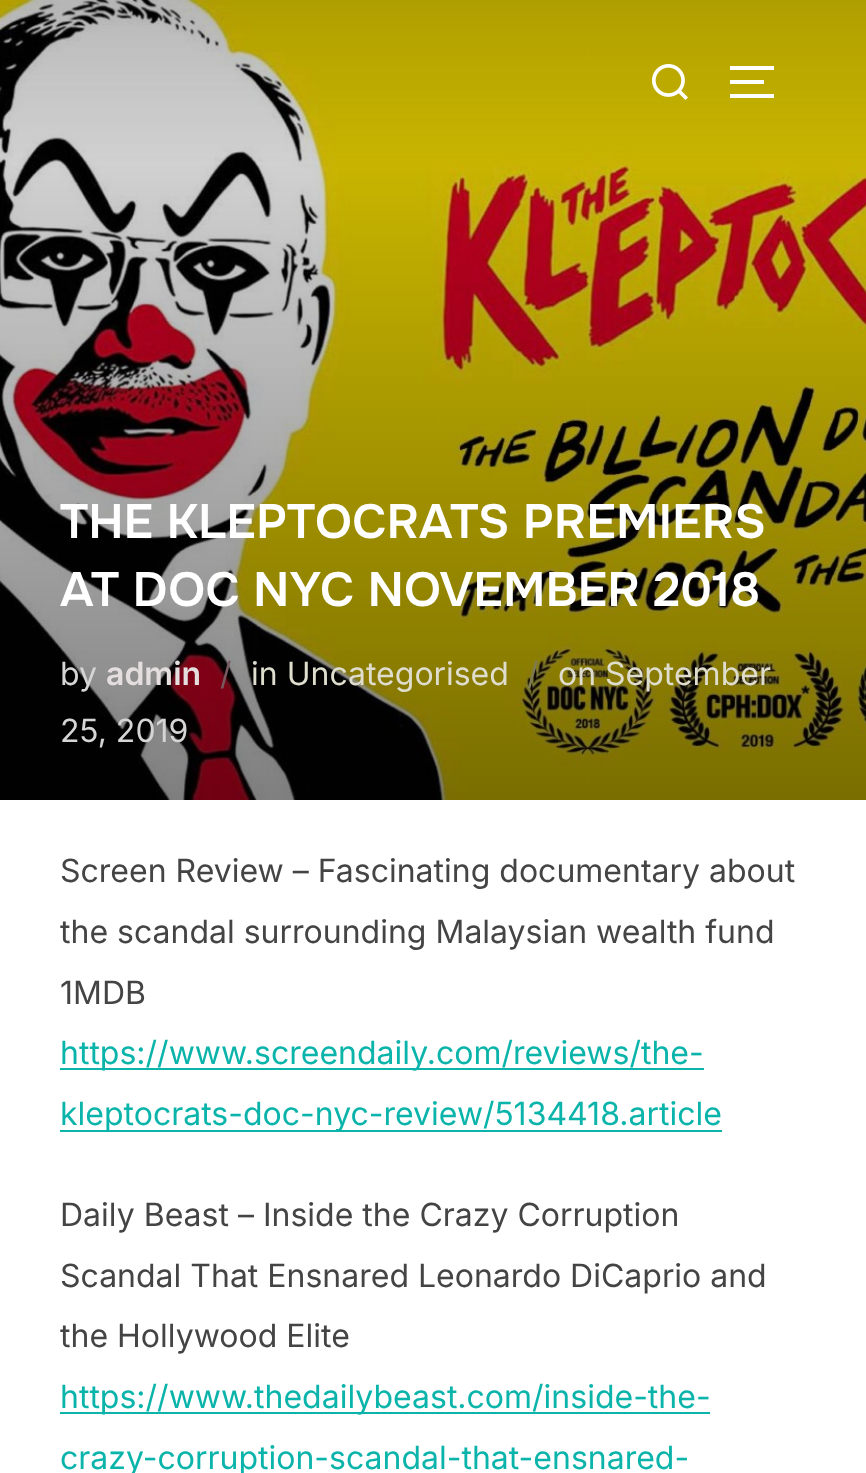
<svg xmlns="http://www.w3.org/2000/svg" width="866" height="1473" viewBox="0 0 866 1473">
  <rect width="100%" height="100%" fill="#fff"/>
  <image x="0" y="0" width="866" height="800" href="img/2.png"/>
  <image x="652" y="64" width="36" height="36" href="img/1.png"/>
  <path d="M730 66h44v4H730z" fill="#fff"/>
  <path d="M730 80h34v4H730z" fill="#fff"/>
  <path d="M730 94h44v4H730z" fill="#fff"/>
  <path d="M60 1068h644v2H60z" fill="#0bb4aa"/>
  <path d="M60 1130h662v2H60z" fill="#0bb4aa"/>
  <path d="M60 1412h650v2H60z" fill="#0bb4aa"/>
  <g font-family="Onest" font-size="48" font-weight="600" fill="#fff">
    <text x="60" y="538">THE KLEPTOCRATS PREMIERS</text>
    <text x="60" y="606">AT DOC NYC NOVEMBER 2018</text>
  </g>
  <text x="60" y="685" font-family="Inter" font-size="32" fill="#d5d5d5">by</text>
  <text x="106" y="685" font-family="Inter" font-size="32" font-weight="600" fill="#e4dedf">admin</text>
  <text x="220" y="685" font-family="Inter" font-size="32" fill="#785b61">/</text>
  <text x="251" y="685" font-family="Inter" font-size="32" fill="#dfddcd">in Uncategorised</text>
  <text x="527" y="685" font-family="Inter" font-size="32" fill="#7e7a53">/</text>
  <g font-family="Inter" font-size="32" fill="#dfddcd">
    <text x="558" y="685">on</text>
    <text x="605" y="685">September</text>
  </g>
  <text x="60" y="742" font-family="Inter" font-size="32" fill="#d5d5d5">25, 2019</text>
  <g font-family="Inter" font-size="32" fill="#444">
    <text x="60" y="882">Screen Review – Fascinating documentary about</text>
    <text x="60" y="943">the scandal surrounding Malaysian wealth fund</text>
    <text x="60" y="1004">1MDB</text>
  </g>
  <g font-family="Inter" font-size="32" fill="#0bb4aa">
    <text x="60" y="1064">https://www.screendaily.com/reviews/the-</text>
    <text x="60" y="1125">kleptocrats-doc-nyc-review/5134418.article</text>
  </g>
  <g font-family="Inter" font-size="32" fill="#444">
    <text x="60" y="1226">Daily Beast – Inside the Crazy Corruption</text>
    <text x="60" y="1287">Scandal That Ensnared Leonardo DiCaprio and</text>
    <text x="60" y="1347">the Hollywood Elite</text>
  </g>
  <g font-family="Inter" font-size="32" fill="#0bb4aa">
    <text x="60" y="1408">https://www.thedailybeast.com/inside-the-</text>
    <text x="60" y="1469">crazy-corruption-scandal-that-ensnared-</text>
  </g>
</svg>
